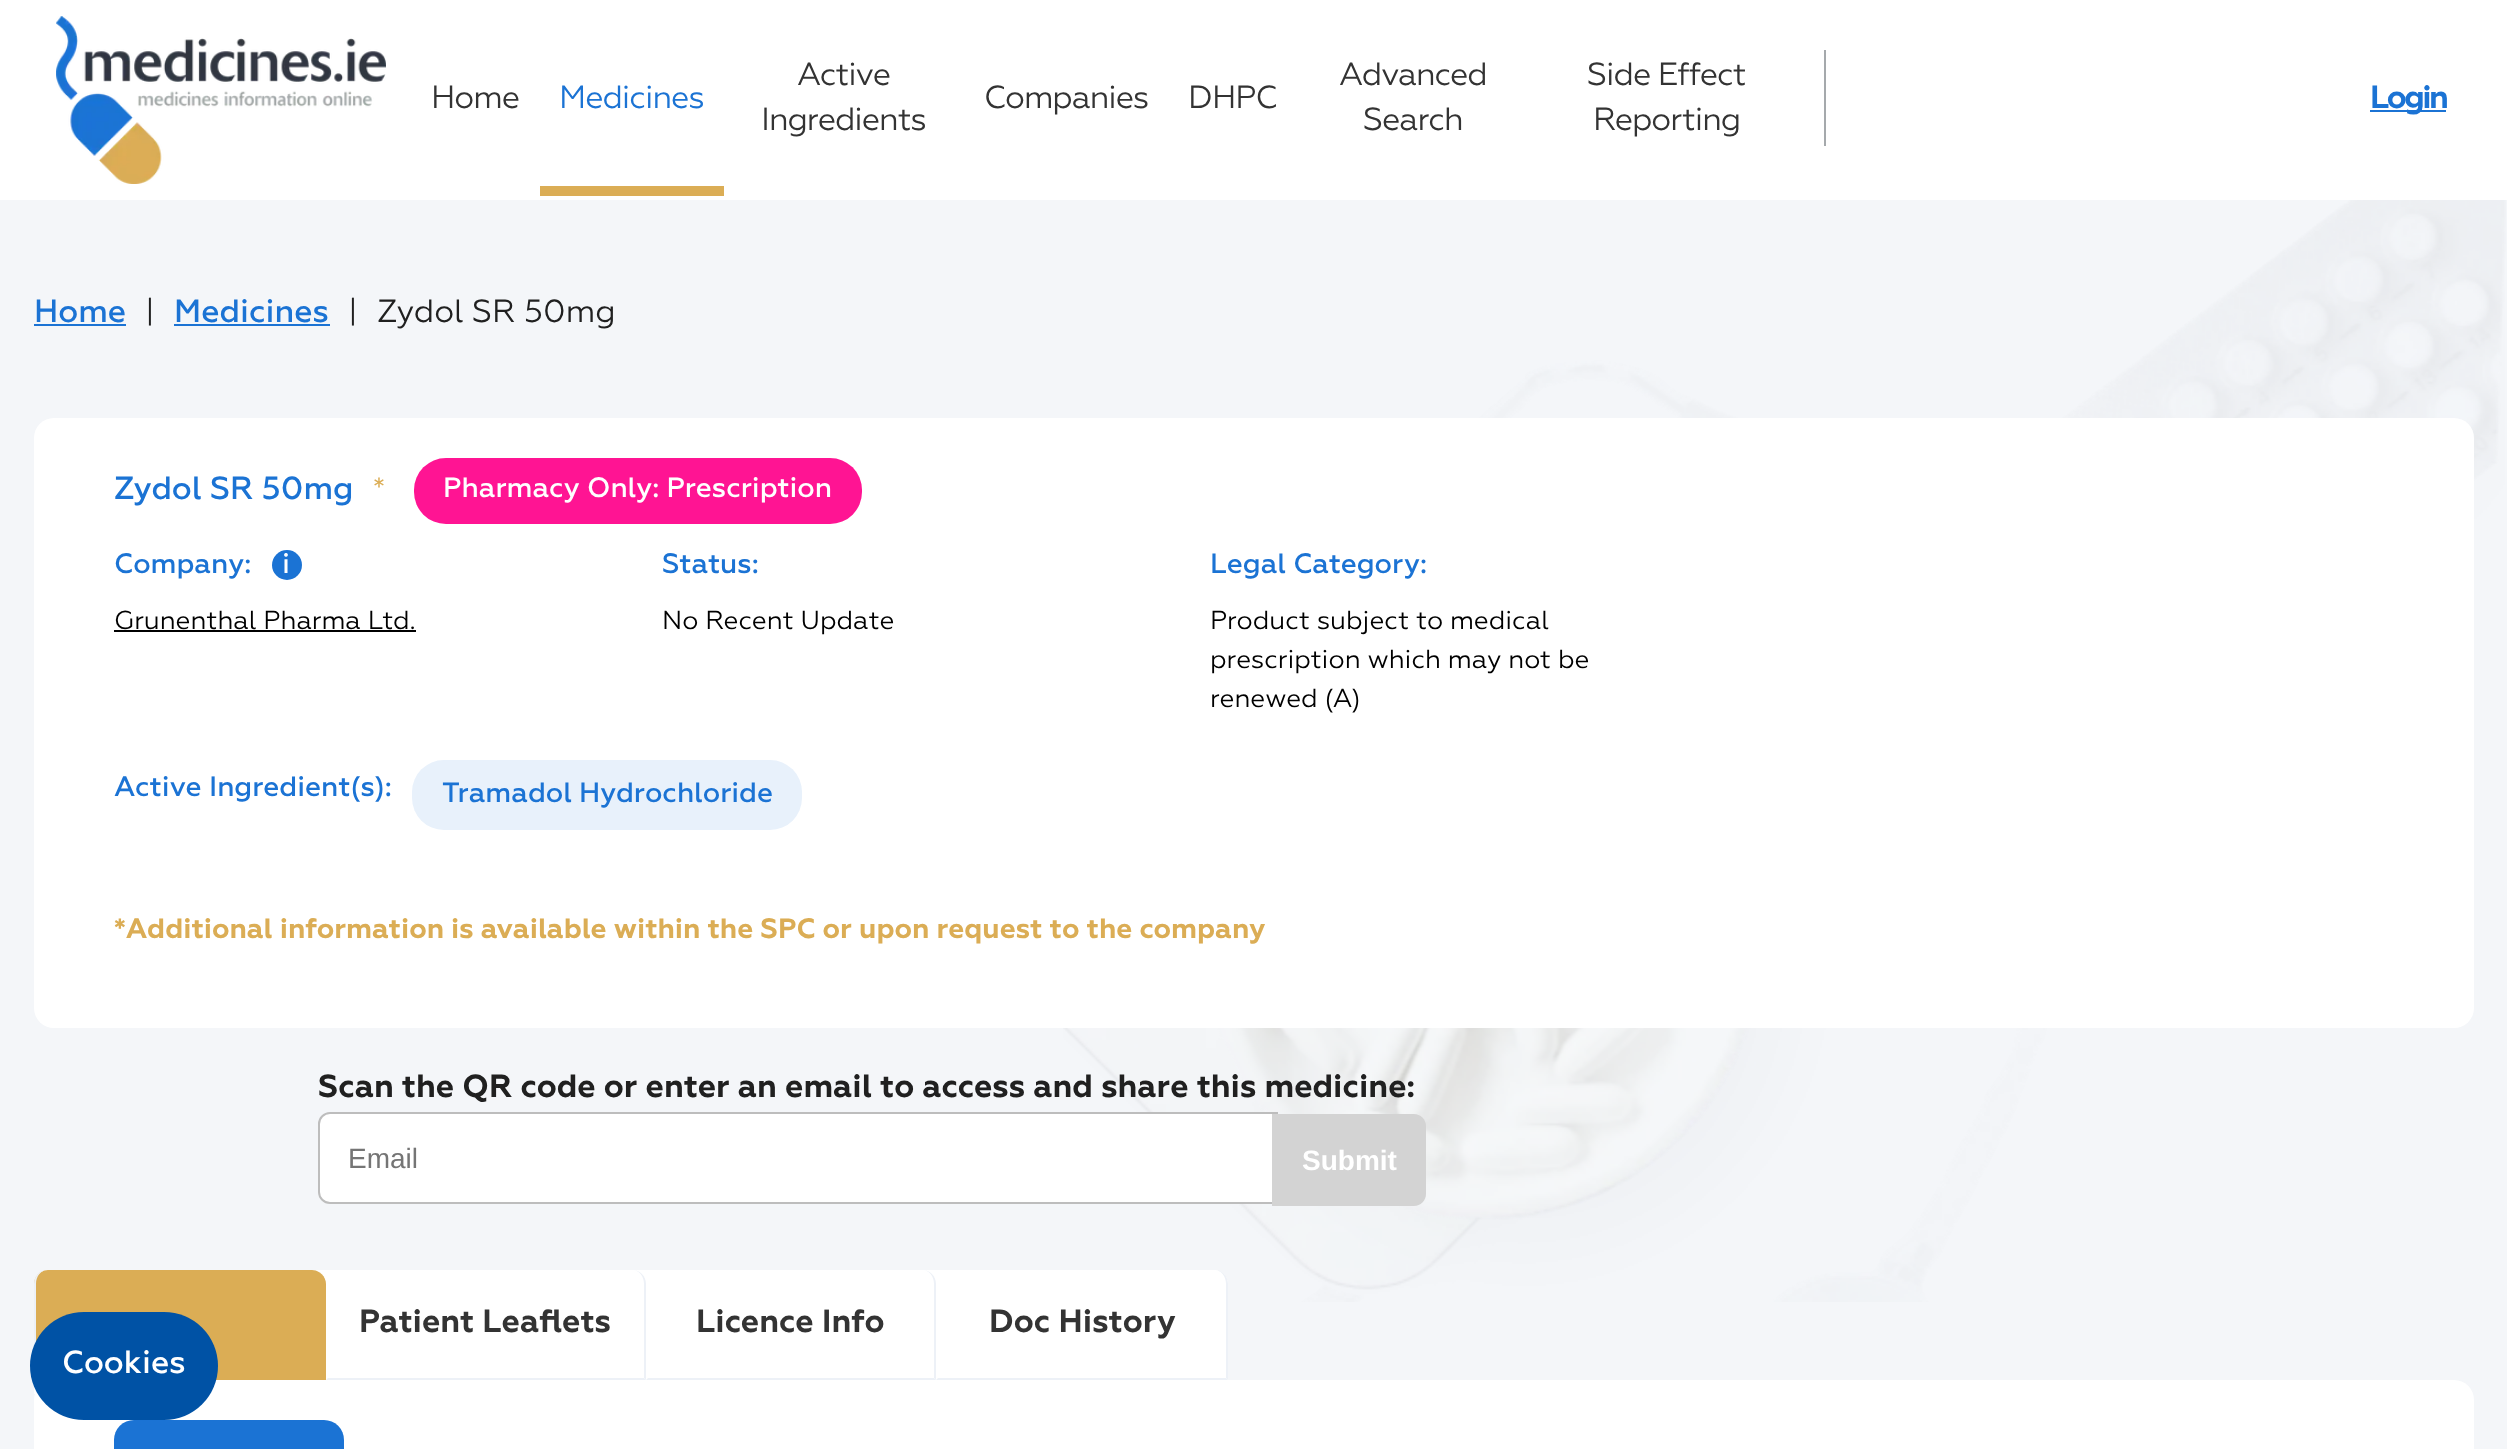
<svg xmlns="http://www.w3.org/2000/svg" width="2507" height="1449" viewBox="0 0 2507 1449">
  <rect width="100%" height="100%" fill="#f4f6f9"/>
  <image x="1063" y="200" width="1443" height="1102" href="img/1.png"/>
  <path d="M0 0h2507v200H0z" fill="#fff"/>
  <image x="56" y="16" width="330" height="168" href="img/2.png"/>
  <path d="M540 186h184v10H540z" fill="#dbad55"/>
  <path d="M1824 50h2v96H1824z" fill="#a5a9ac"/>
  <path d="M2370 110h76v2H2370z" fill="#1b73d4"/>
  <path d="M34 324h92v2H34z" fill="#1b73d4"/>
  <path d="M174 324h156v2H174z" fill="#1b73d4"/>
  <rect x="34" y="418" width="2440" height="610" rx="20" fill="#fff"/>
  <rect x="414" y="458" width="448" height="66" rx="32" fill="#ff1493"/>
  <circle cx="287" cy="565" r="15" fill="#1b73d4"/>
  <image x="284" y="553" width="4" height="20" href="img/3.png"/>
  <path d="M114 630h302v2H114z" fill="#000"/>
  <rect x="412" y="760" width="390" height="70" rx="32" fill="#e8f1fb"/>
  <path d="M330 1113H1277V1203H330C324 1203 319 1198 319 1192V1124C319 1118 324 1113 330 1113Z" fill="#fff" stroke="#bdbdbd" stroke-width="2"/>
  <path d="M1272 1114H1414C1420.5 1114 1426 1119.5 1426 1126V1194C1426 1200.5 1420.5 1206 1414 1206H1272Z" fill="#d3d3d3"/>
  <path d="M48 1270H1214C1221.5 1270 1228 1276.5 1228 1284V1380H34V1284C34 1276.5 40.5 1270 48 1270Z" fill="#fff"/>
  <path d="M48 1270H312C319.5 1270 326 1276.5 326 1284V1380H34V1284C34 1276.5 40.5 1270 48 1270Z" fill="#dbad55"/>
  <path d="M48 1270C40 1270 34 1276 34 1284V1380L36 1378V1284C36 1276 41 1270 48 1270Z" fill="#edf1f7"/>
  <path d="M646 1284C646 1276 640 1270 632 1270C639 1270 644 1276 644 1284V1378L646 1380Z" fill="#edf1f7"/>
  <path d="M646 1380H326L328 1378H644Z" fill="#edf1f7"/>
  <path d="M936 1284C936 1276 930 1270 922 1270C929 1270 934 1276 934 1284V1378L936 1380Z" fill="#edf1f7"/>
  <path d="M936 1380H646L648 1378H934Z" fill="#edf1f7"/>
  <path d="M950 1270H1214C1221.5 1270 1228 1276.5 1228 1284V1380H936V1284C936 1276.5 942.5 1270 950 1270Z" fill="#fff"/>
  <path d="M1228 1284C1228 1276 1222 1270 1214 1270C1221 1270 1226 1276 1226 1284V1378L1228 1380Z" fill="#edf1f7"/>
  <path d="M1228 1380H936L938 1378H1226Z" fill="#edf1f7"/>
  <path d="M34 1386h3v8H34z" fill="#fff"/>
  <rect x="34" y="1380" width="2440" height="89" rx="20" fill="#fff"/>
  <rect x="114" y="1420" width="230" height="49" rx="20" fill="#1b73d4"/>
  <rect x="30" y="1312" width="188" height="108" rx="54" fill="#0052a5"/>
  <text x="431" y="108" font-family="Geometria" font-size="32" letter-spacing="-1" fill="#333">Home</text>
  <text x="559" y="108" font-family="Geometria" font-size="32" letter-spacing="-1" fill="#1b73d4">Medicines</text>
  <g font-family="Geometria" font-size="32" letter-spacing="-1" fill="#333">
    <text x="797" y="85">Active</text>
    <text x="761" y="130">Ingredients</text>
    <text x="984" y="108">Companies</text>
    <text x="1188" y="108">DHPC</text>
    <text x="1339" y="85">Advanced</text>
    <text x="1363" y="130">Search</text>
    <text x="1587" y="85">Side Effect</text>
    <text x="1593" y="130">Reporting</text>
  </g>
  <text x="2370" y="108" font-family="Geometria" font-size="32" font-weight="bold" letter-spacing="-2.5" fill="#1b73d4">Login</text>
  <text x="34" y="322" font-family="Geometria" font-size="32" font-weight="500" fill="#1b73d4">Home</text>
  <text x="145" y="322" font-family="Geometria" font-size="32" fill="#202020">|</text>
  <text x="174" y="322" font-family="Geometria" font-size="32" font-weight="500" fill="#1b73d4">Medicines</text>
  <g font-family="Geometria" font-size="32" fill="#202020">
    <text x="348" y="322">|</text>
    <text x="377" y="322">Zydol SR 50mg</text>
  </g>
  <text x="114" y="499" font-family="Geometria" font-size="32" font-weight="500" fill="#1b73d4">Zydol SR 50mg</text>
  <text x="373" y="497" font-family="Geometria" font-size="28" fill="#dbad55">*</text>
  <text x="443" y="497" font-family="Geometria" font-size="28" font-weight="500" fill="#fff">Pharmacy Only: Prescription</text>
  <text x="114" y="573" font-family="Geometria" font-size="28" font-weight="500" fill="#1b73d4">Company:</text>
  <text x="114" y="629" font-family="Geometria" font-size="26" fill="#000">Grunenthal Pharma Ltd.</text>
  <text x="662" y="573" font-family="Geometria" font-size="28" font-weight="500" fill="#1b73d4">Status:</text>
  <text x="662" y="629" font-family="Geometria" font-size="26" fill="#000">No Recent Update</text>
  <text x="1210" y="573" font-family="Geometria" font-size="28" font-weight="500" fill="#1b73d4">Legal Category:</text>
  <g font-family="Geometria" font-size="26" fill="#000">
    <text x="1210" y="629">Product subject to medical</text>
    <text x="1210" y="668">prescription which may not be</text>
    <text x="1210" y="707">renewed (A)</text>
  </g>
  <g font-family="Geometria" font-size="28" font-weight="500" fill="#1b73d4">
    <text x="114" y="796">Active Ingredient(s):</text>
    <text x="442" y="802">Tramadol Hydrochloride</text>
  </g>
  <text x="114" y="938" font-family="Geometria" font-size="28" font-weight="bold" fill="#dbad55">*Additional information is available within the SPC or upon request to the company</text>
  <text x="318" y="1097" font-family="Geometria" font-size="32" font-weight="bold" fill="#202020">Scan the QR code or enter an email to access and share this medicine:</text>
  <text x="348" y="1168" font-family="Liberation Sans" font-size="28" fill="#757575">Email</text>
  <text x="1302" y="1170" font-family="Liberation Sans" font-size="28" font-weight="bold" fill="#fff">Submit</text>
  <g font-family="Geometria" font-size="32" font-weight="bold" fill="#333">
    <text x="359" y="1332">Patient Leaflets</text>
    <text x="696" y="1332">Licence Info</text>
    <text x="989" y="1332">Doc History</text>
  </g>
  <text x="62" y="1373" font-family="Geometria" font-size="32" font-weight="500" fill="#fff">Cookies</text>
</svg>
